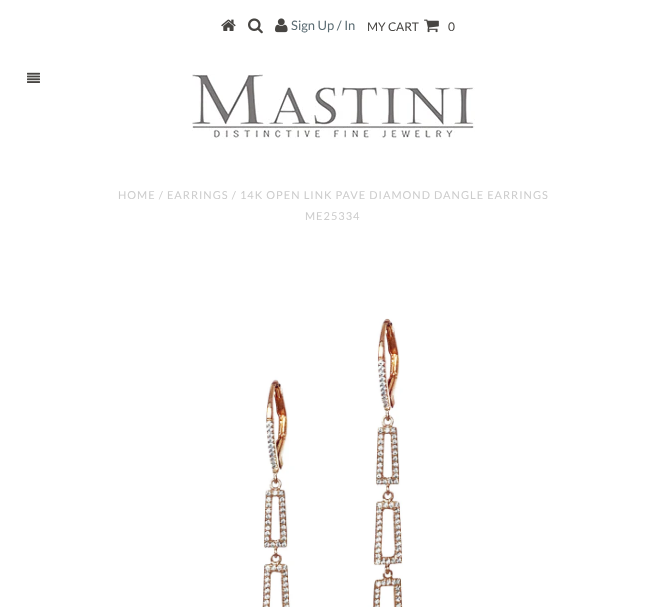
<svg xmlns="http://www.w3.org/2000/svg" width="666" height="607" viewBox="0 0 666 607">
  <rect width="100%" height="100%" fill="#fff"/>
  <image x="27" y="72" width="13" height="11" href="img/1.png"/>
  <image x="221" y="19" width="15" height="12" href="img/2.png"/>
  <image x="248" y="18" width="15" height="16" href="img/3.png"/>
  <image x="275" y="18" width="13" height="15" href="img/4.png"/>
  <image x="424" y="19" width="15" height="14" href="img/5.png"/>
  <image x="192" y="74" width="283" height="65" href="img/6.png"/>
  <image x="262" y="318" width="141" height="289" href="img/7.png"/>
  <text x="291" y="30" font-family="Lato" font-size="13" fill="#5d6e75">Sign Up / In</text>
  <g font-family="Lato" font-size="12" fill="#474542">
    <text x="367" y="31">MY CART</text>
    <text x="448" y="31">0</text>
  </g>
  <g font-family="Lato" font-size="11" letter-spacing="1" fill="#ccc">
    <text x="118" y="199">HOME / EARRINGS / 14K OPEN LINK PAVE DIAMOND DANGLE EARRINGS</text>
    <text x="305" y="220">ME25334</text>
  </g>
</svg>
